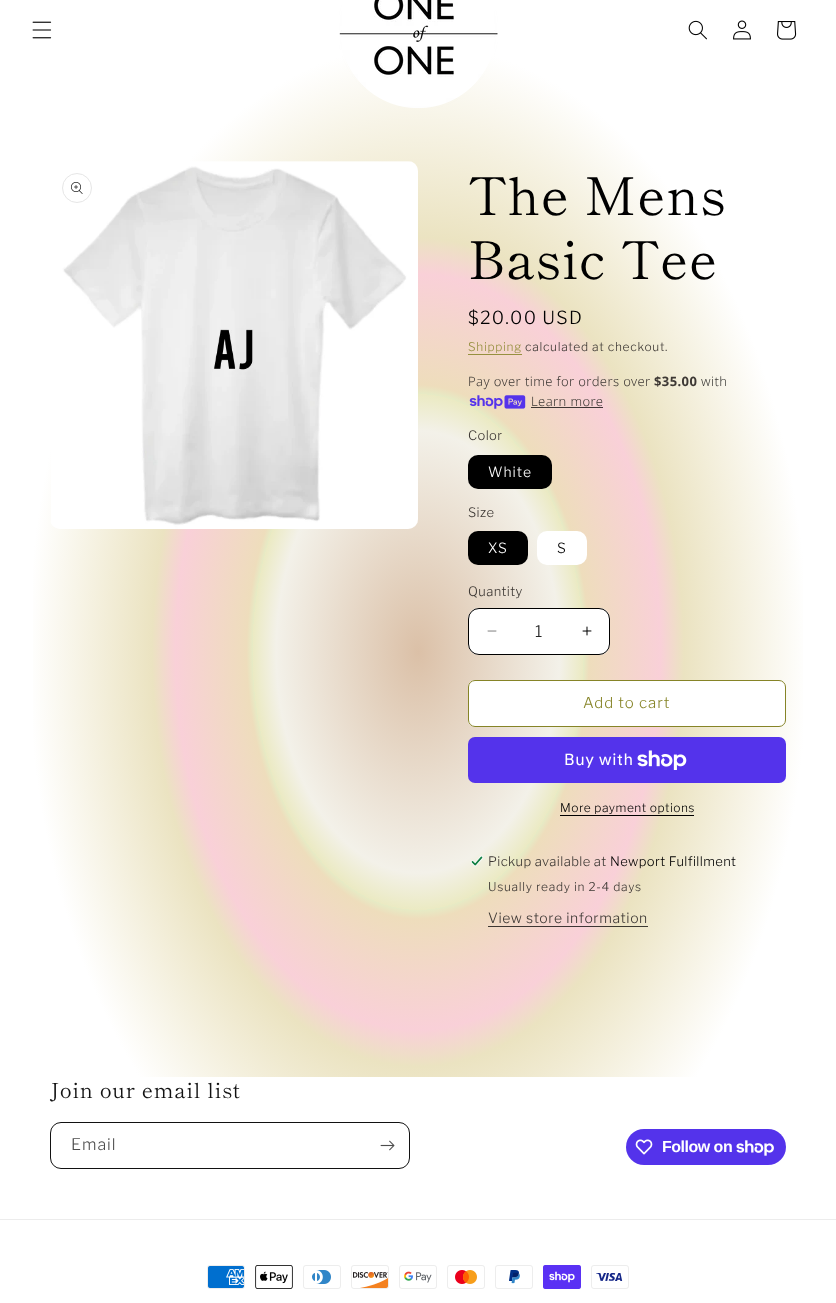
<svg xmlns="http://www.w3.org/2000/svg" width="836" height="1303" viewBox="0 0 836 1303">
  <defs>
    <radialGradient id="g1" gradientUnits="userSpaceOnUse" cx="0" cy="0" r="1" gradientTransform="matrix(591 0 0 921 418 652)"><stop offset="0" stop-color="#dcc1a9"/><stop offset="0.24" stop-color="#f3f1e9"/><stop offset="0.28" stop-color="#ebeac3"/><stop offset="0.28" stop-color="#e6ebc5"/><stop offset="0.29" stop-color="#eeddbc"/><stop offset="0.41" stop-color="#f9d0d8"/><stop offset="0.45" stop-color="#ebe3c1"/><stop offset="0.66" stop-color="#fff"/></radialGradient>
    <radialGradient id="g2" gradientUnits="userSpaceOnUse" cx="0" cy="0" r="1" gradientTransform="matrix(591 0 0 921 418 652)"><stop offset="0" stop-color="#dbc0a7" stop-opacity="0.98"/><stop offset="0.24" stop-color="#f3f1e9"/><stop offset="0.28" stop-color="#ebeac3"/><stop offset="0.28" stop-color="#e6ebc5"/><stop offset="0.29" stop-color="#eeddbc"/><stop offset="0.41" stop-color="#f9d0d8"/><stop offset="0.45" stop-color="#ebe3c1"/><stop offset="0.66" stop-color="#fff"/></radialGradient>
  </defs>
  <rect width="100%" height="100%" fill="#fff"/>
  <path d="M33 51h770v1026H33z" fill="url(#g1)"/>
  <image x="32" y="21" width="20" height="18" href="img/1.png"/>
  <image x="339" y="0" width="159" height="108" href="img/2.png"/>
  <image x="688" y="20" width="19" height="20" href="img/3.png"/>
  <image x="733" y="20" width="18" height="20" href="img/4.png"/>
  <image x="777" y="21" width="20" height="19" href="img/5.png"/>
  <path d="M253 394h321v515H253z" fill="url(#g2)"/>
  <rect x="50" y="161" width="368" height="368" rx="10" fill="#fff"/>
  <rect x="50" y="161" width="368" height="368" rx="10" fill="url(#g2)"/>
  <image x="51" y="161" width="367" height="368" href="img/6.png"/>
  <circle cx="77" cy="188" r="14.5" fill="none" stroke="#e6e6e6"/>
  <image x="71" y="182" width="12" height="12" href="img/7.png"/>
  <path d="M468 354h54v1H468z" fill="#868427d9"/>
  <image x="469" y="395" width="57" height="14" href="img/8.png"/>
  <path d="M531 407h72v1H531z" fill="#000000bf"/>
  <rect x="468" y="455" width="84" height="34" rx="10" fill="#000"/>
  <rect x="468" y="531" width="60" height="34" rx="10" fill="#000"/>
  <rect x="537" y="531" width="50" height="34" rx="10" fill="#fff"/>
  <rect x="468" y="608" width="142" height="47" rx="11" fill="#fff"/>
  <image x="487" y="630" width="10" height="2" href="img/9.png"/>
  <image x="582" y="626" width="10" height="10" href="img/10.png"/>
  <rect x="468.5" y="608.5" width="141" height="46" rx="10.5" fill="none" stroke="#000"/>
  <rect x="468" y="680" width="318" height="47" rx="7" fill="#fff"/>
  <rect x="468.5" y="680.5" width="317" height="46" rx="6.5" fill="none" stroke="#fff"/>
  <rect x="468.5" y="680.5" width="317" height="46" rx="6.5" fill="none" stroke="#868427"/>
  <rect x="468" y="737" width="318" height="46" rx="7" fill="#5433eb"/>
  <image x="637" y="750" width="50" height="20" href="img/11.png"/>
  <path d="M560 815h134v1H560z" fill="#000"/>
  <image x="470" y="855" width="14" height="12" href="img/12.png"/>
  <path d="M488 926h160v1H488z" fill="#000000bf"/>
  <rect x="50.5" y="1122.5" width="359" height="46" rx="10.5" fill="none" stroke="#121212"/>
  <image x="380" y="1140" width="15" height="11" href="img/13.png"/>
  <rect x="626" y="1129" width="160" height="36" rx="18" fill="#5433eb"/>
  <image x="635" y="1139" width="18" height="16" href="img/14.png"/>
  <image x="736" y="1140" width="38" height="16" href="img/15.png"/>
  <path d="M0 1219h836v1H0z" fill="#ececec"/>
  <image x="207" y="1265" width="38" height="24" href="img/16.png"/>
  <image x="255" y="1265" width="38" height="24" href="img/17.png"/>
  <image x="303" y="1265" width="38" height="24" href="img/18.png"/>
  <image x="351" y="1265" width="38" height="24" href="img/19.png"/>
  <image x="399" y="1265" width="38" height="24" href="img/20.png"/>
  <image x="447" y="1265" width="38" height="24" href="img/21.png"/>
  <image x="495" y="1265" width="38" height="24" href="img/22.png"/>
  <image x="543" y="1265" width="38" height="24" href="img/23.png"/>
  <image x="591" y="1265" width="38" height="24" href="img/24.png"/>
  <g font-family="Shippori Mincho" font-size="52" letter-spacing="0.75" fill="#000">
    <text x="468" y="215">The Mens</text>
    <text x="468" y="279">Basic Tee</text>
  </g>
  <text x="468" y="324" font-family="Libre Franklin" font-size="18" font-weight="300" letter-spacing="1.25" fill="#000">$20.00 USD</text>
  <text x="468" y="351" font-family="Libre Franklin" font-size="12" font-weight="300" letter-spacing="0.7" fill="#979040">Shipping</text>
  <text x="525" y="351" font-family="Libre Franklin" font-size="12" font-weight="300" letter-spacing="0.7" fill="#3d3834">calculated at checkout.</text>
  <text x="468" y="386" font-family="Noto Sans" font-size="13" font-weight="300" letter-spacing="0.4" fill="#3d3834">Pay over time for orders over</text>
  <text x="654" y="386" font-family="Noto Sans" font-size="13" font-weight="bold" letter-spacing="0.4" fill="#3d3834">$35.00</text>
  <text x="701" y="386" font-family="Noto Sans" font-size="13" font-weight="300" letter-spacing="0.4" fill="#3e3d3a">with</text>
  <text x="531" y="406" font-family="Noto Sans" font-size="13" font-weight="300" letter-spacing="0.4" fill="#3d3834">Learn more</text>
  <text x="468" y="440" font-family="Libre Franklin" font-size="13" font-weight="300" letter-spacing="0.4" fill="#3d3834">Color</text>
  <text x="488" y="477" font-family="Libre Franklin" font-size="14" font-weight="300" letter-spacing="1" fill="#fff">White</text>
  <text x="468" y="517" font-family="Libre Franklin" font-size="13" font-weight="300" letter-spacing="0.4" fill="#3d3834">Size</text>
  <text x="488" y="553" font-family="Libre Franklin" font-size="14" font-weight="300" letter-spacing="1" fill="#fff">XS</text>
  <text x="557" y="553" font-family="Libre Franklin" font-size="14" font-weight="300" letter-spacing="1" fill="#000">S</text>
  <text x="468" y="596" font-family="Libre Franklin" font-size="13" font-weight="300" letter-spacing="0.4" fill="#3d3834">Quantity</text>
  <text x="535" y="637" font-family="Libre Franklin" font-size="16" font-weight="300" fill="#262626">1</text>
  <text x="583" y="708" font-family="Libre Franklin" font-size="15" font-weight="300" letter-spacing="1" fill="#868427">Add to cart</text>
  <text x="564" y="765" font-family="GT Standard" font-size="16" letter-spacing="0.6" fill="#fff">Buy with</text>
  <text x="560" y="812" font-family="Libre Franklin" font-size="12" font-weight="300" letter-spacing="0.5" fill="#000">More payment options</text>
  <text x="488" y="866" font-family="Libre Franklin" font-size="13" font-weight="300" letter-spacing="0.4" fill="#3d3834">Pickup available at</text>
  <text x="610" y="866" font-family="Libre Franklin" font-size="13" font-weight="300" letter-spacing="0.4" fill="#000">Newport Fulfillment</text>
  <text x="488" y="891" font-family="Libre Franklin" font-size="12" font-weight="300" letter-spacing="0.7" fill="#3d3834">Usually ready in 2-4 days</text>
  <text x="488" y="923" font-family="Libre Franklin" font-size="14" font-weight="300" letter-spacing="0.6" fill="#3d3834">View store information</text>
  <text x="50" y="1098" font-family="Shippori Mincho" font-size="20.75" letter-spacing="0.75" fill="#121212">Join our email list</text>
  <text x="71" y="1150" font-family="Libre Franklin" font-size="16" font-weight="300" letter-spacing="1" fill="#4d4d4d">Email</text>
  <text x="662" y="1152" font-family="Liberation Sans" font-size="16" font-weight="bold" letter-spacing="-0.5" fill="#fff">Follow on</text>
</svg>
